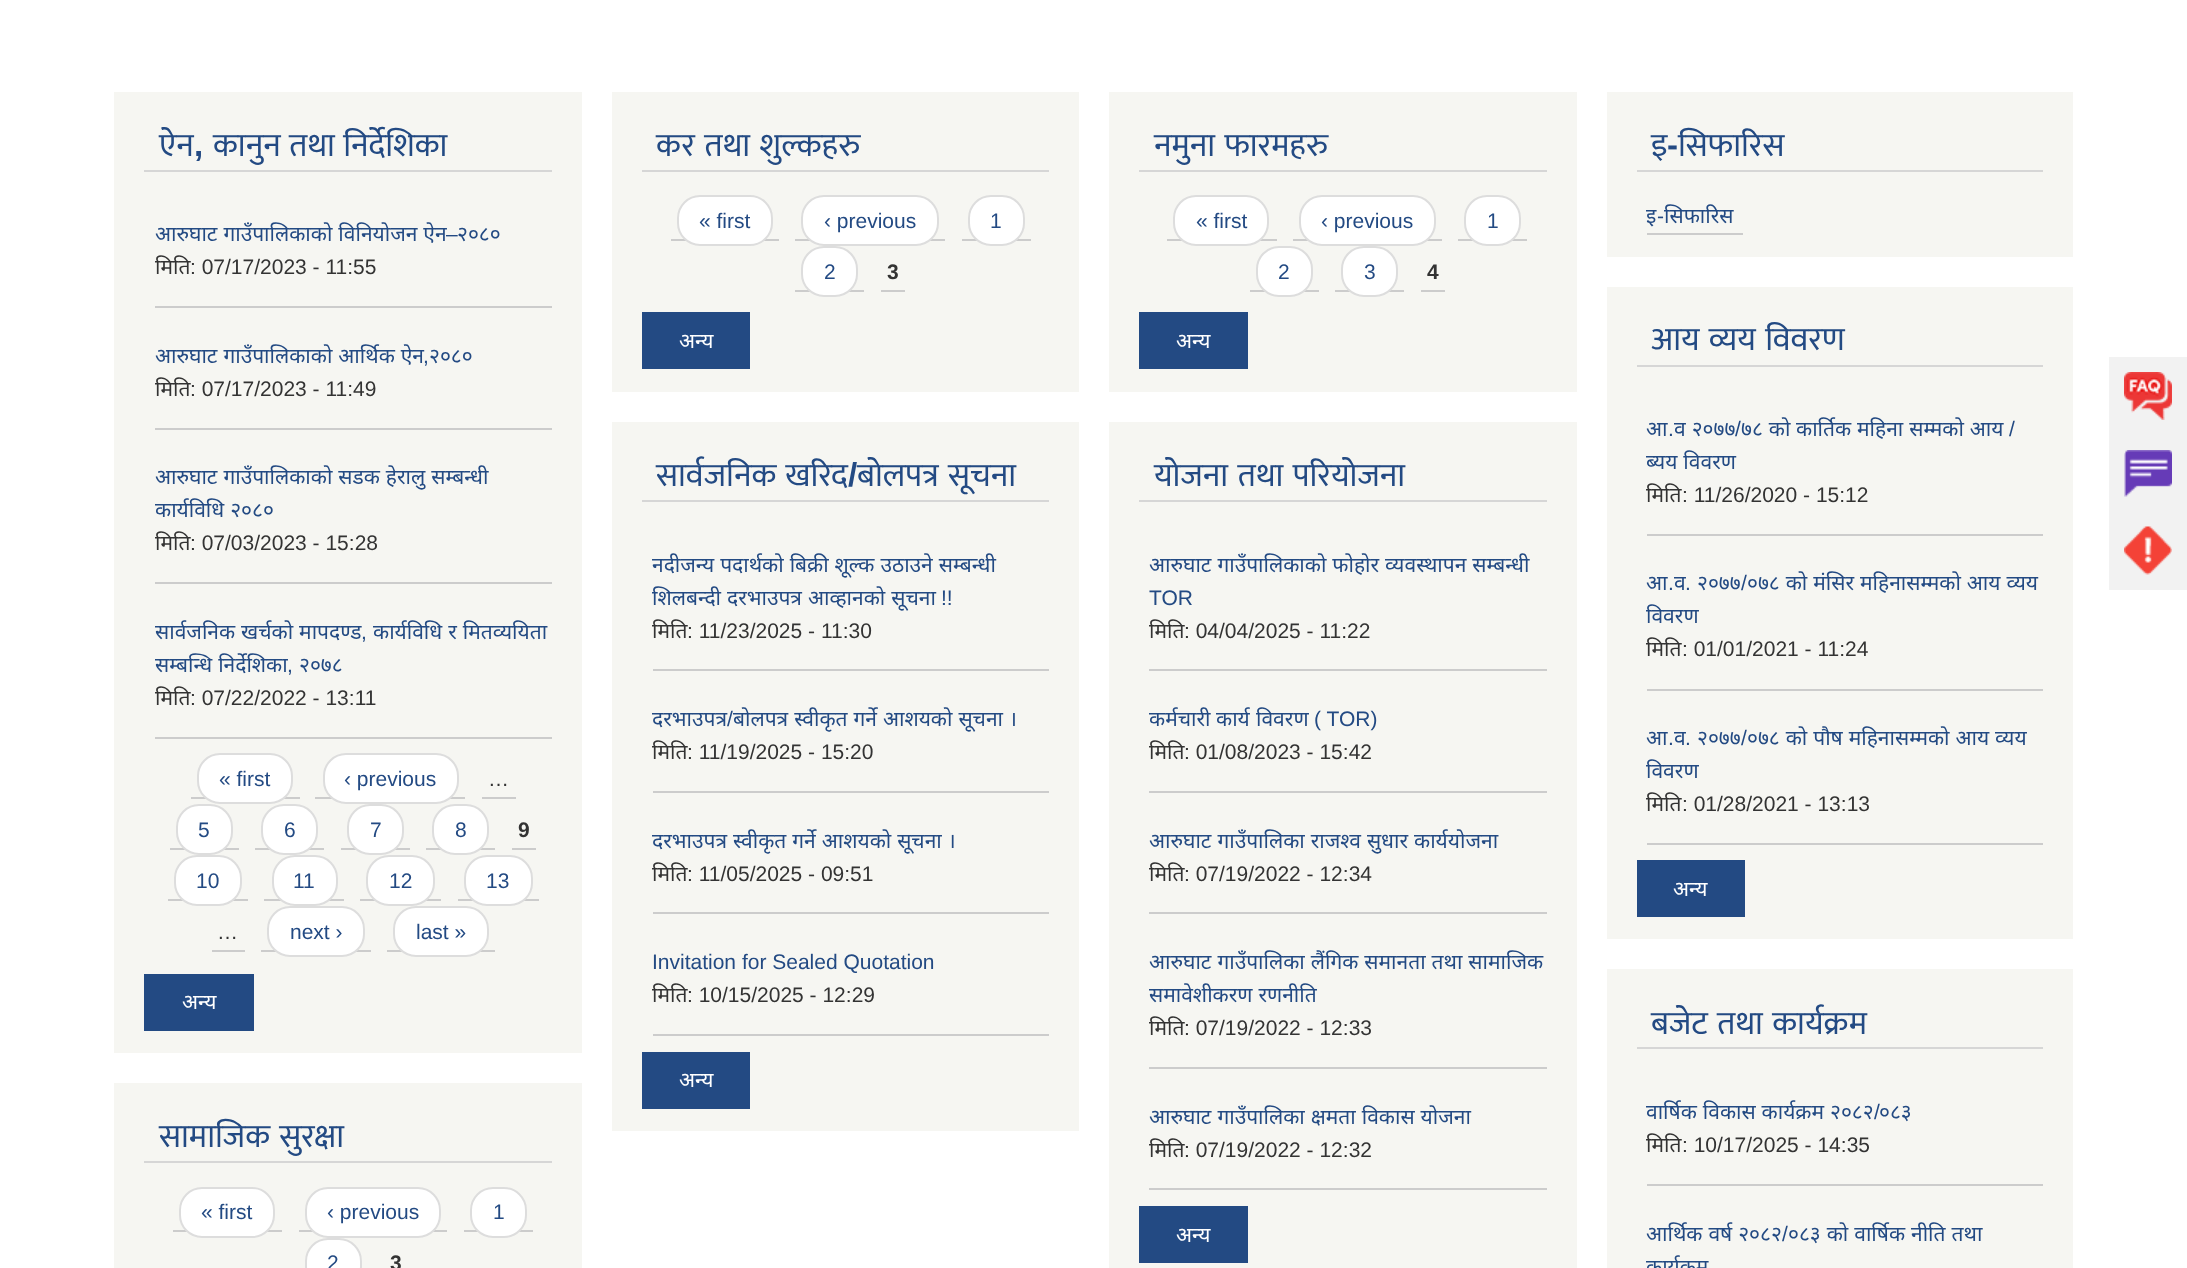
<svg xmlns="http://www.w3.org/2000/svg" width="2187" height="1268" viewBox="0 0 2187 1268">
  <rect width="100%" height="100%" fill="#fff"/>
  <path d="M114 92h468v961H114z" fill="#f6f6f2"/>
  <path d="M144 170h408v2H144z" fill="#d6d6d6"/>
  <path d="M155 306h397v2H155z" fill="#ccc"/>
  <path d="M155 428h397v2H155z" fill="#ccc"/>
  <path d="M155 582h397v2H155z" fill="#ccc"/>
  <path d="M155 737h397v2H155z" fill="#ccc"/>
  <path d="M191 797h109v2H191z" fill="#ccc"/>
  <rect x="198" y="754" width="94" height="49" rx="22" fill="#fff" stroke="#ddd" stroke-width="2"/>
  <path d="M315 797h150v2H315z" fill="#ccc"/>
  <rect x="324" y="754" width="134" height="49" rx="22" fill="#fff" stroke="#ddd" stroke-width="2"/>
  <path d="M482 797h34v2H482z" fill="#ccc"/>
  <path d="M170 848h69v2H170z" fill="#ccc"/>
  <rect x="177" y="805" width="55" height="49" rx="22" fill="#fff" stroke="#ddd" stroke-width="2"/>
  <path d="M255 848h69v2H255z" fill="#ccc"/>
  <rect x="262" y="805" width="55" height="49" rx="22" fill="#fff" stroke="#ddd" stroke-width="2"/>
  <path d="M341 848h69v2H341z" fill="#ccc"/>
  <rect x="348" y="805" width="55" height="49" rx="22" fill="#fff" stroke="#ddd" stroke-width="2"/>
  <path d="M426 848h69v2H426z" fill="#ccc"/>
  <rect x="433" y="805" width="55" height="49" rx="22" fill="#fff" stroke="#ddd" stroke-width="2"/>
  <path d="M512 848h24v2H512z" fill="#ccc"/>
  <path d="M168 899h80v2H168z" fill="#ccc"/>
  <rect x="175" y="856" width="66" height="49" rx="22" fill="#fff" stroke="#ddd" stroke-width="2"/>
  <path d="M264 899h80v2H264z" fill="#ccc"/>
  <rect x="273" y="856" width="64" height="49" rx="22" fill="#fff" stroke="#ddd" stroke-width="2"/>
  <path d="M360 899h81v2H360z" fill="#ccc"/>
  <rect x="367" y="856" width="67" height="49" rx="22" fill="#fff" stroke="#ddd" stroke-width="2"/>
  <path d="M458 899h81v2H458z" fill="#ccc"/>
  <rect x="465" y="856" width="67" height="49" rx="22" fill="#fff" stroke="#ddd" stroke-width="2"/>
  <path d="M212 950h33v2H212z" fill="#ccc"/>
  <path d="M261 950h110v2H261z" fill="#ccc"/>
  <rect x="268" y="907" width="96" height="49" rx="22" fill="#fff" stroke="#ddd" stroke-width="2"/>
  <path d="M387 950h108v2H387z" fill="#ccc"/>
  <rect x="394" y="907" width="94" height="49" rx="22" fill="#fff" stroke="#ddd" stroke-width="2"/>
  <path d="M144 974h110v57H144z" fill="#234a83"/>
  <path d="M114 1083h468v185H114z" fill="#f6f6f2"/>
  <path d="M144 1161h408v2H144z" fill="#d6d6d6"/>
  <path d="M173 1230h109v2H173z" fill="#ccc"/>
  <rect x="180" y="1188" width="94" height="49" rx="22" fill="#fff" stroke="#ddd" stroke-width="2"/>
  <path d="M299 1230h148v2H299z" fill="#ccc"/>
  <rect x="306" y="1188" width="134" height="49" rx="22" fill="#fff" stroke="#ddd" stroke-width="2"/>
  <path d="M464 1230h69v2H464z" fill="#ccc"/>
  <rect x="471" y="1188" width="55" height="49" rx="22" fill="#fff" stroke="#ddd" stroke-width="2"/>
  <rect x="306" y="1239" width="55" height="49" rx="22" fill="#fff" stroke="#ddd" stroke-width="2"/>
  <path d="M612 92h467v300H612z" fill="#f6f6f2"/>
  <path d="M642 170h407v2H642z" fill="#d6d6d6"/>
  <path d="M671 239h108v2H671z" fill="#ccc"/>
  <rect x="678" y="196" width="94" height="49" rx="22" fill="#fff" stroke="#ddd" stroke-width="2"/>
  <path d="M795 239h150v2H795z" fill="#ccc"/>
  <rect x="802" y="196" width="136" height="49" rx="22" fill="#fff" stroke="#ddd" stroke-width="2"/>
  <path d="M962 239h69v2H962z" fill="#ccc"/>
  <rect x="969" y="196" width="55" height="49" rx="22" fill="#fff" stroke="#ddd" stroke-width="2"/>
  <path d="M795 290h69v2H795z" fill="#ccc"/>
  <rect x="802" y="247" width="55" height="49" rx="22" fill="#fff" stroke="#ddd" stroke-width="2"/>
  <path d="M881 290h24v2H881z" fill="#ccc"/>
  <path d="M642 312h108v57H642z" fill="#234a83"/>
  <path d="M612 422h467v709H612z" fill="#f6f6f2"/>
  <path d="M642 500h407v2H642z" fill="#d6d6d6"/>
  <path d="M653 669h396v2H653z" fill="#ccc"/>
  <path d="M653 791h396v2H653z" fill="#ccc"/>
  <path d="M653 912h396v2H653z" fill="#ccc"/>
  <path d="M653 1034h396v2H653z" fill="#ccc"/>
  <path d="M642 1052h108v57H642z" fill="#234a83"/>
  <path d="M1109 92h468v300H1109z" fill="#f6f6f2"/>
  <path d="M1139 170h408v2H1139z" fill="#d6d6d6"/>
  <path d="M1167 239h110v2H1167z" fill="#ccc"/>
  <rect x="1174" y="196" width="94" height="49" rx="22" fill="#fff" stroke="#ddd" stroke-width="2"/>
  <path d="M1293 239h149v2H1293z" fill="#ccc"/>
  <rect x="1300" y="196" width="135" height="49" rx="22" fill="#fff" stroke="#ddd" stroke-width="2"/>
  <path d="M1458 239h69v2H1458z" fill="#ccc"/>
  <rect x="1465" y="196" width="55" height="49" rx="22" fill="#fff" stroke="#ddd" stroke-width="2"/>
  <path d="M1250 290h69v2H1250z" fill="#ccc"/>
  <rect x="1257" y="247" width="55" height="49" rx="22" fill="#fff" stroke="#ddd" stroke-width="2"/>
  <path d="M1335 290h69v2H1335z" fill="#ccc"/>
  <rect x="1342" y="247" width="55" height="49" rx="22" fill="#fff" stroke="#ddd" stroke-width="2"/>
  <path d="M1421 290h24v2H1421z" fill="#ccc"/>
  <path d="M1139 312h109v57H1139z" fill="#234a83"/>
  <path d="M1109 422h468v846H1109z" fill="#f6f6f2"/>
  <path d="M1139 500h408v2H1139z" fill="#d6d6d6"/>
  <path d="M1149 669h398v2H1149z" fill="#ccc"/>
  <path d="M1149 791h398v2H1149z" fill="#ccc"/>
  <path d="M1149 912h398v2H1149z" fill="#ccc"/>
  <path d="M1149 1067h398v2H1149z" fill="#ccc"/>
  <path d="M1149 1188h398v2H1149z" fill="#ccc"/>
  <path d="M1139 1206h109v57H1139z" fill="#234a83"/>
  <path d="M1607 92h466v165H1607z" fill="#f6f6f2"/>
  <path d="M1637 170h406v2H1637z" fill="#d6d6d6"/>
  <path d="M1647 233h96v2H1647z" fill="#ccc"/>
  <path d="M1607 287h466v652H1607z" fill="#f6f6f2"/>
  <path d="M1637 365h406v2H1637z" fill="#d6d6d6"/>
  <path d="M1647 534h396v2H1647z" fill="#ccc"/>
  <path d="M1647 689h396v2H1647z" fill="#ccc"/>
  <path d="M1647 843h396v2H1647z" fill="#ccc"/>
  <path d="M1637 860h108v57H1637z" fill="#234a83"/>
  <path d="M1607 969h466v299H1607z" fill="#f6f6f2"/>
  <path d="M1637 1047h406v2H1637z" fill="#d6d6d6"/>
  <path d="M1647 1184h396v2H1647z" fill="#ccc"/>
  <path d="M2109 357h78v233H2109z" fill="#f2f2f2"/>
  <image x="2124" y="372" width="48" height="48" href="img/1.png"/>
  <image x="2124" y="450" width="48" height="47" href="img/2.png"/>
  <image x="2124" y="526" width="48" height="49" href="img/3.png"/>
  <text x="159" y="156" font-family="Mukta" font-size="33" fill="#234a83">ऐन</text>
  <text x="194" y="156" font-family="Liberation Sans" font-size="33" font-weight="bold" fill="#234a83">,</text>
  <text x="213" y="156" word-spacing="1" font-family="Mukta" font-size="33" fill="#234a83">कानुन तथा निर्देशिका</text>
  <text x="155" y="241" word-spacing="0.5" font-family="Noto Sans" font-size="21" fill="#234a83">आरुघाट गाउँपालिकाको विनियोजन ऐन</text>
  <text x="446" y="241" font-family="Liberation Sans" font-size="21" fill="#234a83">–</text>
  <text x="457" y="241" font-family="Noto Sans" font-size="21" fill="#234a83">२०८०</text>
  <text x="155" y="274" font-family="Noto Sans" font-size="21" fill="#333">मिति</text>
  <text x="190" y="274" font-family="Liberation Sans" font-size="21" fill="#333">: 07/17/2023 - 11:55</text>
  <text x="155" y="363" word-spacing="0.5" font-family="Noto Sans" font-size="21" fill="#234a83">आरुघाट गाउँपालिकाको आर्थिक ऐन</text>
  <text x="423" y="363" font-family="Liberation Sans" font-size="21" fill="#234a83">,</text>
  <text x="429" y="363" font-family="Noto Sans" font-size="21" fill="#234a83">२०८०</text>
  <text x="155" y="396" font-family="Noto Sans" font-size="21" fill="#333">मिति</text>
  <text x="190" y="396" font-family="Liberation Sans" font-size="21" fill="#333">: 07/17/2023 - 11:49</text>
  <g font-family="Noto Sans" font-size="21" fill="#234a83">
    <text x="155" y="484" word-spacing="0.5">आरुघाट गाउँपालिकाको सडक हेरालु सम्बन्धी</text>
    <text x="155" y="517" word-spacing="0.5">कार्यविधि २०८०</text>
  </g>
  <text x="155" y="550" font-family="Noto Sans" font-size="21" fill="#333">मिति</text>
  <text x="190" y="550" font-family="Liberation Sans" font-size="21" fill="#333">: 07/03/2023 - 15:28</text>
  <text x="155" y="639" word-spacing="0.5" font-family="Noto Sans" font-size="21" fill="#234a83">सार्वजनिक खर्चको मापदण्ड</text>
  <text x="361" y="639" font-family="Liberation Sans" font-size="21" fill="#234a83">,</text>
  <g font-family="Noto Sans" font-size="21" fill="#234a83">
    <text x="373" y="639" word-spacing="0.5">कार्यविधि र मितव्ययिता</text>
    <text x="155" y="672" word-spacing="0.5">सम्बन्धि निर्देशिका</text>
  </g>
  <text x="287" y="672" font-family="Liberation Sans" font-size="21" fill="#234a83">,</text>
  <text x="299" y="672" font-family="Noto Sans" font-size="21" fill="#234a83">२०७८</text>
  <text x="155" y="705" font-family="Noto Sans" font-size="21" fill="#333">मिति</text>
  <text x="190" y="705" font-family="Liberation Sans" font-size="21" fill="#333">: 07/22/2022 - 13:11</text>
  <g font-family="Liberation Sans" font-size="21" fill="#234a83">
    <text x="219" y="786">« first</text>
    <text x="344" y="786">‹ previous</text>
  </g>
  <text x="488" y="786" font-family="Liberation Sans" font-size="21" fill="#333">…</text>
  <g font-family="Liberation Sans" font-size="21" fill="#234a83">
    <text x="198" y="837">5</text>
    <text x="284" y="837">6</text>
    <text x="370" y="837">7</text>
    <text x="455" y="837">8</text>
  </g>
  <text x="518" y="837" font-family="Liberation Sans" font-size="21" font-weight="bold" fill="#333">9</text>
  <g font-family="Liberation Sans" font-size="21" fill="#234a83">
    <text x="196" y="888">10</text>
    <text x="293" y="888">11</text>
    <text x="389" y="888">12</text>
    <text x="486" y="888">13</text>
  </g>
  <text x="217" y="939" font-family="Liberation Sans" font-size="21" fill="#333">…</text>
  <g font-family="Liberation Sans" font-size="21" fill="#234a83">
    <text x="290" y="939">next ›</text>
    <text x="416" y="939">last »</text>
  </g>
  <text x="182" y="1009" font-family="Noto Sans" font-size="21" fill="#fff">अन्य</text>
  <text x="159" y="1147" word-spacing="2" font-family="Mukta" font-size="33" fill="#234a83">सामाजिक सुरक्षा</text>
  <g font-family="Liberation Sans" font-size="21" fill="#234a83">
    <text x="201" y="1219">« first</text>
    <text x="327" y="1219">‹ previous</text>
    <text x="493" y="1219">1</text>
    <text x="327" y="1270">2</text>
  </g>
  <text x="390" y="1270" font-family="Liberation Sans" font-size="21" font-weight="bold" fill="#333">3</text>
  <text x="656" y="156" word-spacing="2" font-family="Mukta" font-size="33" fill="#234a83">कर तथा शुल्कहरु</text>
  <g font-family="Liberation Sans" font-size="21" fill="#234a83">
    <text x="699" y="228">« first</text>
    <text x="824" y="228">‹ previous</text>
    <text x="990" y="228">1</text>
    <text x="824" y="279">2</text>
  </g>
  <text x="887" y="279" font-family="Liberation Sans" font-size="21" font-weight="bold" fill="#333">3</text>
  <text x="679" y="348" font-family="Noto Sans" font-size="21" fill="#fff">अन्य</text>
  <text x="656" y="486" word-spacing="2" font-family="Mukta" font-size="33" fill="#234a83">सार्वजनिक खरिद</text>
  <text x="848" y="486" font-family="Liberation Sans" font-size="33" font-weight="bold" fill="#234a83">/</text>
  <text x="857" y="486" word-spacing="2" font-family="Mukta" font-size="33" fill="#234a83">बोलपत्र सूचना</text>
  <g font-family="Noto Sans" font-size="21" fill="#234a83">
    <text x="652" y="572" word-spacing="0.5">नदीजन्य पदार्थको बिक्री शूल्क उठाउने सम्बन्धी</text>
    <text x="652" y="605" word-spacing="0.5">शिलबन्दी दरभाउपत्र आव्हानको सूचना</text>
  </g>
  <text x="941" y="605" font-family="Liberation Sans" font-size="21" fill="#234a83">!!</text>
  <text x="652" y="638" font-family="Noto Sans" font-size="21" fill="#333">मिति</text>
  <text x="687" y="638" font-family="Liberation Sans" font-size="21" fill="#333">: 11/23/2025 - 11:30</text>
  <text x="652" y="726" font-family="Noto Sans" font-size="21" fill="#234a83">दरभाउपत्र</text>
  <text x="727" y="726" font-family="Liberation Sans" font-size="21" fill="#234a83">/</text>
  <text x="733" y="726" word-spacing="0.5" font-family="Noto Sans" font-size="21" fill="#234a83">बोलपत्र स्वीकृत गर्ने आशयको सूचना ।</text>
  <text x="652" y="759" font-family="Noto Sans" font-size="21" fill="#333">मिति</text>
  <text x="687" y="759" font-family="Liberation Sans" font-size="21" fill="#333">: 11/19/2025 - 15:20</text>
  <text x="652" y="848" word-spacing="0.5" font-family="Noto Sans" font-size="21" fill="#234a83">दरभाउपत्र स्वीकृत गर्ने आशयको सूचना ।</text>
  <text x="652" y="881" font-family="Noto Sans" font-size="21" fill="#333">मिति</text>
  <text x="687" y="881" font-family="Liberation Sans" font-size="21" fill="#333">: 11/05/2025 - 09:51</text>
  <text x="652" y="969" font-family="Liberation Sans" font-size="21" fill="#234a83">Invitation for Sealed Quotation</text>
  <text x="652" y="1002" font-family="Noto Sans" font-size="21" fill="#333">मिति</text>
  <text x="687" y="1002" font-family="Liberation Sans" font-size="21" fill="#333">: 10/15/2025 - 12:29</text>
  <text x="679" y="1087" font-family="Noto Sans" font-size="21" fill="#fff">अन्य</text>
  <text x="1154" y="156" word-spacing="2" font-family="Mukta" font-size="33" fill="#234a83">नमुना फारमहरु</text>
  <g font-family="Liberation Sans" font-size="21" fill="#234a83">
    <text x="1196" y="228">« first</text>
    <text x="1321" y="228">‹ previous</text>
    <text x="1487" y="228">1</text>
    <text x="1278" y="279">2</text>
    <text x="1364" y="279">3</text>
  </g>
  <text x="1427" y="279" font-family="Liberation Sans" font-size="21" font-weight="bold" fill="#333">4</text>
  <text x="1176" y="348" font-family="Noto Sans" font-size="21" fill="#fff">अन्य</text>
  <text x="1154" y="486" word-spacing="2" font-family="Mukta" font-size="33" fill="#234a83">योजना तथा परियोजना</text>
  <text x="1149" y="572" word-spacing="0.5" font-family="Noto Sans" font-size="21" fill="#234a83">आरुघाट गाउँपालिकाको फोहोर व्यवस्थापन सम्बन्धी</text>
  <text x="1149" y="605" font-family="Liberation Sans" font-size="21" fill="#234a83">TOR</text>
  <text x="1149" y="638" font-family="Noto Sans" font-size="21" fill="#333">मिति</text>
  <text x="1184" y="638" font-family="Liberation Sans" font-size="21" fill="#333">: 04/04/2025 - 11:22</text>
  <g font-family="Noto Sans" font-size="21" fill="#234a83">
    <text x="1149" y="726">कर्मचारी</text>
    <text x="1216" y="726">कार्य</text>
    <text x="1256" y="726">विवरण</text>
  </g>
  <text x="1314" y="726" font-family="Liberation Sans" font-size="21" fill="#234a83">( TOR)</text>
  <text x="1149" y="759" font-family="Noto Sans" font-size="21" fill="#333">मिति</text>
  <text x="1184" y="759" font-family="Liberation Sans" font-size="21" fill="#333">: 01/08/2023 - 15:42</text>
  <text x="1149" y="848" word-spacing="0.5" font-family="Noto Sans" font-size="21" fill="#234a83">आरुघाट गाउँपालिका राजश्व सुधार कार्ययोजना</text>
  <text x="1149" y="881" font-family="Noto Sans" font-size="21" fill="#333">मिति</text>
  <text x="1184" y="881" font-family="Liberation Sans" font-size="21" fill="#333">: 07/19/2022 - 12:34</text>
  <g font-family="Noto Sans" font-size="21" fill="#234a83">
    <text x="1149" y="969" word-spacing="0.5">आरुघाट गाउँपालिका लैंगिक समानता तथा सामाजिक</text>
    <text x="1149" y="1002" word-spacing="0.5">समावेशीकरण रणनीति</text>
  </g>
  <text x="1149" y="1035" font-family="Noto Sans" font-size="21" fill="#333">मिति</text>
  <text x="1184" y="1035" font-family="Liberation Sans" font-size="21" fill="#333">: 07/19/2022 - 12:33</text>
  <text x="1149" y="1124" word-spacing="0.5" font-family="Noto Sans" font-size="21" fill="#234a83">आरुघाट गाउँपालिका क्षमता विकास योजना</text>
  <text x="1149" y="1157" font-family="Noto Sans" font-size="21" fill="#333">मिति</text>
  <text x="1184" y="1157" font-family="Liberation Sans" font-size="21" fill="#333">: 07/19/2022 - 12:32</text>
  <text x="1176" y="1242" font-family="Noto Sans" font-size="21" fill="#fff">अन्य</text>
  <text x="1651" y="156" font-family="Mukta" font-size="33" fill="#234a83">इ</text>
  <text x="1667" y="156" font-family="Liberation Sans" font-size="33" font-weight="bold" fill="#234a83">-</text>
  <text x="1678" y="156" font-family="Mukta" font-size="33" fill="#234a83">सिफारिस</text>
  <text x="1646" y="223" font-family="Noto Sans" font-size="21" fill="#234a83">इ</text>
  <text x="1657" y="223" font-family="Liberation Sans" font-size="21" fill="#234a83">-</text>
  <text x="1664" y="223" font-family="Noto Sans" font-size="21" fill="#234a83">सिफारिस</text>
  <text x="1651" y="350" word-spacing="2" font-family="Mukta" font-size="33" fill="#234a83">आय व्यय विवरण</text>
  <text x="1646" y="436" font-family="Noto Sans" font-size="21" fill="#234a83">आ</text>
  <text x="1668" y="436" font-family="Liberation Sans" font-size="21" fill="#234a83">.</text>
  <text x="1674" y="436" word-spacing="0.5" font-family="Noto Sans" font-size="21" fill="#234a83">व २०७७</text>
  <text x="1735" y="436" font-family="Liberation Sans" font-size="21" fill="#234a83">/</text>
  <g font-family="Noto Sans" font-size="21" fill="#234a83">
    <text x="1741" y="436" word-spacing="0.5">७८ को</text>
    <text x="1796" y="436" word-spacing="0.5">कार्तिक महिना सम्मको आय</text>
  </g>
  <text x="2009" y="436" font-family="Liberation Sans" font-size="21" fill="#234a83">/</text>
  <text x="1646" y="469" word-spacing="0.5" font-family="Noto Sans" font-size="21" fill="#234a83">ब्यय विवरण</text>
  <text x="1646" y="502" font-family="Noto Sans" font-size="21" fill="#333">मिति</text>
  <text x="1682" y="502" font-family="Liberation Sans" font-size="21" fill="#333">: 11/26/2020 - 15:12</text>
  <text x="1646" y="590" font-family="Noto Sans" font-size="21" fill="#234a83">आ</text>
  <text x="1668" y="590" font-family="Liberation Sans" font-size="21" fill="#234a83">.</text>
  <text x="1674" y="590" font-family="Noto Sans" font-size="21" fill="#234a83">व</text>
  <text x="1685" y="590" font-family="Liberation Sans" font-size="21" fill="#234a83">.</text>
  <text x="1697" y="590" font-family="Noto Sans" font-size="21" fill="#234a83">२०७७</text>
  <text x="1741" y="590" font-family="Liberation Sans" font-size="21" fill="#234a83">/</text>
  <g font-family="Noto Sans" font-size="21" fill="#234a83">
    <text x="1747" y="590" word-spacing="0.5">०७८ को मंसिर महिनासम्मको आय व्यय</text>
    <text x="1646" y="623">विवरण</text>
  </g>
  <text x="1646" y="656" font-family="Noto Sans" font-size="21" fill="#333">मिति</text>
  <text x="1682" y="656" font-family="Liberation Sans" font-size="21" fill="#333">: 01/01/2021 - 11:24</text>
  <text x="1646" y="745" font-family="Noto Sans" font-size="21" fill="#234a83">आ</text>
  <text x="1668" y="745" font-family="Liberation Sans" font-size="21" fill="#234a83">.</text>
  <text x="1674" y="745" font-family="Noto Sans" font-size="21" fill="#234a83">व</text>
  <text x="1685" y="745" font-family="Liberation Sans" font-size="21" fill="#234a83">.</text>
  <text x="1697" y="745" font-family="Noto Sans" font-size="21" fill="#234a83">२०७७</text>
  <text x="1741" y="745" font-family="Liberation Sans" font-size="21" fill="#234a83">/</text>
  <g font-family="Noto Sans" font-size="21" fill="#234a83">
    <text x="1747" y="745" word-spacing="0.5">०७८ को पौष महिनासम्मको आय व्यय</text>
    <text x="1646" y="778">विवरण</text>
  </g>
  <text x="1646" y="811" font-family="Noto Sans" font-size="21" fill="#333">मिति</text>
  <text x="1682" y="811" font-family="Liberation Sans" font-size="21" fill="#333">: 01/28/2021 - 13:13</text>
  <text x="1673" y="896" font-family="Noto Sans" font-size="21" fill="#fff">अन्य</text>
  <text x="1651" y="1034" word-spacing="2" font-family="Mukta" font-size="33" fill="#234a83">बजेट तथा कार्यक्रम</text>
  <text x="1646" y="1119" word-spacing="0.5" font-family="Noto Sans" font-size="21" fill="#234a83">वार्षिक विकास कार्यक्रम २०८२</text>
  <text x="1874" y="1119" font-family="Liberation Sans" font-size="21" fill="#234a83">/</text>
  <text x="1879" y="1119" font-family="Noto Sans" font-size="21" fill="#234a83">०८३</text>
  <text x="1646" y="1152" font-family="Noto Sans" font-size="21" fill="#333">मिति</text>
  <text x="1682" y="1152" font-family="Liberation Sans" font-size="21" fill="#333">: 10/17/2025 - 14:35</text>
  <text x="1646" y="1241" word-spacing="0.5" font-family="Noto Sans" font-size="21" fill="#234a83">आर्थिक वर्ष २०८२</text>
  <text x="1782" y="1241" font-family="Liberation Sans" font-size="21" fill="#234a83">/</text>
  <g font-family="Noto Sans" font-size="21" fill="#234a83">
    <text x="1788" y="1241" word-spacing="0.5">०८३ को वार्षिक नीति तथा</text>
    <text x="1646" y="1274">कार्यक्रम</text>
  </g>
</svg>
